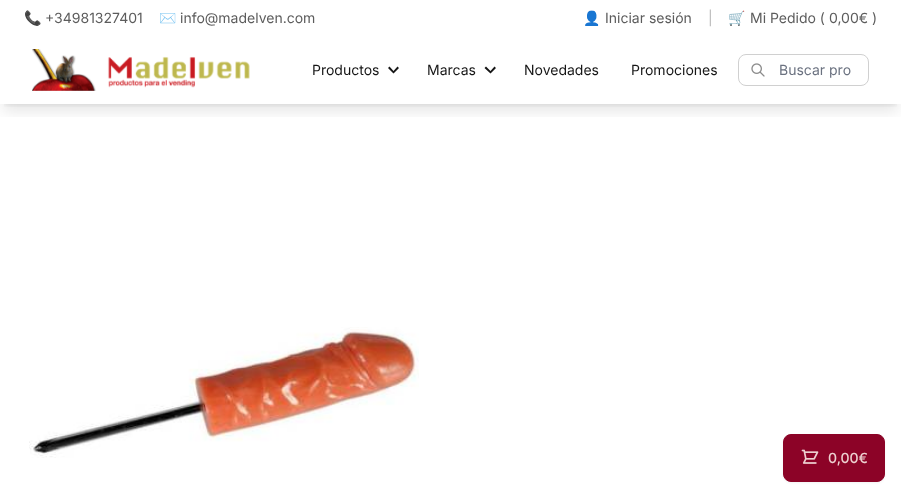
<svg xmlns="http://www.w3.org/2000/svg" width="901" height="498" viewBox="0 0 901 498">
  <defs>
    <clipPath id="clip1"><path d="M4 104h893v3H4z"/></clipPath>
    <clipPath id="clip2"><path d="M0 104h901v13H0z"/></clipPath>
  </defs>
  <rect width="100%" height="100%" fill="#fff"/>
  <g clip-path="url(#clip1)">
    <path d="M4 44h893v60H4z" fill="#0000001a" filter="blur(3px)"/>
  </g>
  <g clip-path="url(#clip2)">
    <path d="M3 49h895v62H3z" fill="#0000001a" filter="blur(7.5px)"/>
  </g>
  <image x="32" y="49" width="218" height="42" href="img/1.png"/>
  <path d="M389.5 66.5L388 68L393.5 73.5L399 68L397.5 66.5L393.5 71Z" fill="#161616"/>
  <path d="M486 66.5L484.5 68L490.5 73.5L496 68L494.5 66.5L490.5 71Z" fill="#161616"/>
  <rect x="738.5" y="54.5" width="130" height="31" rx="7.5" fill="none" stroke="#d0d0d0"/>
  <image x="751" y="63" width="14" height="14" href="img/2.png"/>
  <rect x="783" y="435" width="102" height="48" rx="8" fill="#0000000d" filter="blur(1px)"/>
  <rect x="783.5" y="434.5" width="101" height="47" rx="7.5" fill="#8c0327" stroke="#8c0327"/>
  <image x="801" y="449" width="18" height="15" href="img/3.png"/>
  <image x="29" y="327" width="390" height="131" href="img/4.png"/>
  <text x="24" y="23" font-family="Noto Color Emoji" font-size="14" fill="#5c5c5c">📞</text>
  <text x="45" y="23" font-family="Inter" font-size="14" fill="#5c5c5c">+34981327401</text>
  <text x="159" y="23" font-family="Noto Color Emoji" font-size="14" fill="#5c5c5c">✉️</text>
  <text x="180" y="23" font-family="Inter" font-size="14" fill="#5c5c5c">info@madelven.com</text>
  <text x="583" y="23" font-family="Noto Color Emoji" font-size="14" fill="#5c5c5c">👤</text>
  <text x="605" y="23" font-family="Inter" font-size="14" fill="#5c5c5c">Iniciar sesión</text>
  <text x="708" y="23" font-family="Inter" font-size="14" fill="#b9b9b9">|</text>
  <text x="728" y="23" font-family="Noto Color Emoji" font-size="14" fill="#5c5c5c">🛒</text>
  <text x="750" y="23" font-family="Inter" font-size="14" fill="#5c5c5c">Mi Pedido ( 0,00€ )</text>
  <g font-family="Inter" font-size="14" fill="#161616">
    <text x="312" y="75">Productos</text>
    <text x="427" y="75">Marcas</text>
    <text x="524" y="75">Novedades</text>
    <text x="631" y="75">Promociones</text>
  </g>
  <text x="779" y="75" font-family="Inter" font-size="14" fill="#6b7280">Buscar pro</text>
  <text x="828" y="463" font-family="Inter" font-size="14" font-weight="500" fill="#edd0d0">0,00€</text>
</svg>
